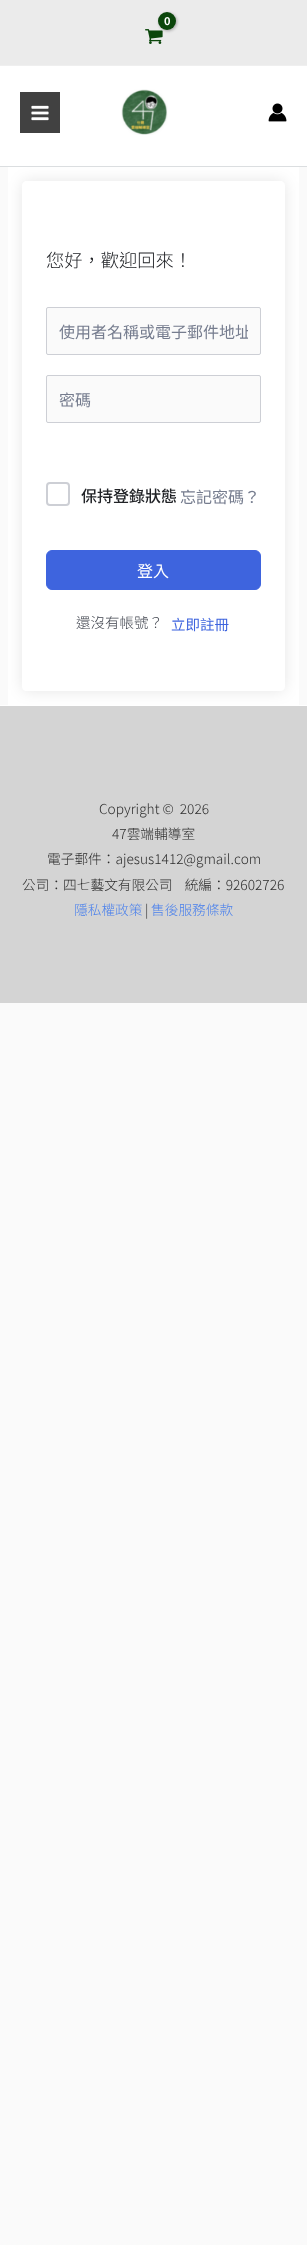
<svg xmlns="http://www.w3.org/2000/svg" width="307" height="2245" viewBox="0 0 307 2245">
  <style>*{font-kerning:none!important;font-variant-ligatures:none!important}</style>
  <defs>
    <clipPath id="clip1"><path d="M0 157H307V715H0ZM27 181H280C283 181 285 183 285 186V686C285 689 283 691 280 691H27C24 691 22 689 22 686V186C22 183 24 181 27 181Z" clip-rule="evenodd"/></clipPath>
    <clipPath id="clip2"><path d="M59 319h189v24H59z"/></clipPath>
  </defs>
  <rect width="100%" height="100%" fill="#fafafa"/>
  <path d="M0 0h307v65H0z" fill="#ebebeb"/>
  <path d="M0 65h307v1H0z" fill="#efefef"/>
  <image x="145" y="29" width="18" height="15" href="img/1.png"/>
  <rect x="159" y="13" width="18" height="18" rx="9" fill="#0000004d" filter="blur(1.5px)"/>
  <circle cx="167" cy="21" r="9" fill="#0b460b"/>
  <path d="M8 167h291v538H8z" fill="#fff"/>
  <g clip-path="url(#clip1)">
    <rect x="22" y="181" width="263" height="510" rx="5" fill="#0000001a" filter="blur(7.5px)"/>
  </g>
  <path d="M0 66h307v100H0z" fill="#fff"/>
  <path d="M0 166h307v1H0z" fill="#dbdee0"/>
  <path d="M20 92h40v41H20z" fill="#414141"/>
  <image x="31" y="105" width="18" height="16" href="img/2.png"/>
  <image x="121" y="89" width="47" height="46" href="img/3.png"/>
  <image x="268" y="103" width="19" height="19" href="img/4.png"/>
  <rect x="46.5" y="307.5" width="214" height="47" rx="1.5" fill="#fafafa" stroke="#cdcfd5"/>
  <rect x="46.5" y="375.5" width="214" height="47" rx="1.5" fill="#fafafa" stroke="#cdcfd5"/>
  <rect x="47" y="483" width="22" height="22" rx="3" fill="none" stroke="#cdcfd5" stroke-width="2"/>
  <rect x="46.5" y="550.5" width="214" height="39" rx="5.5" fill="#3e64de" stroke="#3e64de"/>
  <path d="M0 706h307v297H0z" fill="#d4d4d4"/>
  <path d="M0 705h307v1H0z" fill="#fff"/>
  <text x="164" y="25" font-family="Noto Sans TC" font-size="11" font-weight="bold" fill="#fff">0</text>
  <text x="46" y="267" font-family="Noto Sans TC" font-size="18.25" font-weight="300" fill="#212327">您好，歡迎回來！</text>
  <g clip-path="url(#clip2)">
    <text x="59" y="338" font-family="Noto Sans TC" font-size="16" fill="#757c8e">使用者名稱或電子郵件地址</text>
  </g>
  <text x="59" y="406" font-family="Noto Sans TC" font-size="16" fill="#757c8e">密碼</text>
  <text x="81" y="502" font-family="Noto Sans TC" font-size="16" font-weight="500" fill="#212327">保持登錄狀態</text>
  <text x="180" y="503" font-family="Noto Sans TC" font-size="16" fill="#757c8e">忘記密碼？</text>
  <text x="137" y="577" font-family="Noto Sans TC" font-size="16" fill="#fff">登入</text>
  <text x="76" y="628" font-family="Noto Sans TC" font-size="14.5" font-weight="300" fill="#41454f">還沒有帳號？</text>
  <text x="171" y="630" font-family="Noto Sans TC" font-size="14.5" fill="#3e64de">立即註冊</text>
  <g font-family="Noto Sans TC" font-size="13.7" font-weight="300" fill="#2d2d2d">
    <text x="99" y="814" xml:space="preserve">Copyright ©  2026</text>
    <text x="112" y="839">47雲端輔導室</text>
    <text x="47" y="864">電子郵件：ajesus1412@gmail.com</text>
    <text x="22" y="890" xml:space="preserve">公司：四七藝文有限公司    統編：92602726</text>
  </g>
  <text x="74" y="915" font-family="Noto Sans TC" font-size="13.7" font-weight="300" fill="#4a80ec">隱私權政策</text>
  <text x="145" y="915" font-family="Noto Sans TC" font-size="13.7" font-weight="300" fill="#2d2d2d">|</text>
  <text x="151" y="915" font-family="Noto Sans TC" font-size="13.7" font-weight="300" fill="#4a80ec">售後服務條款</text>
</svg>
